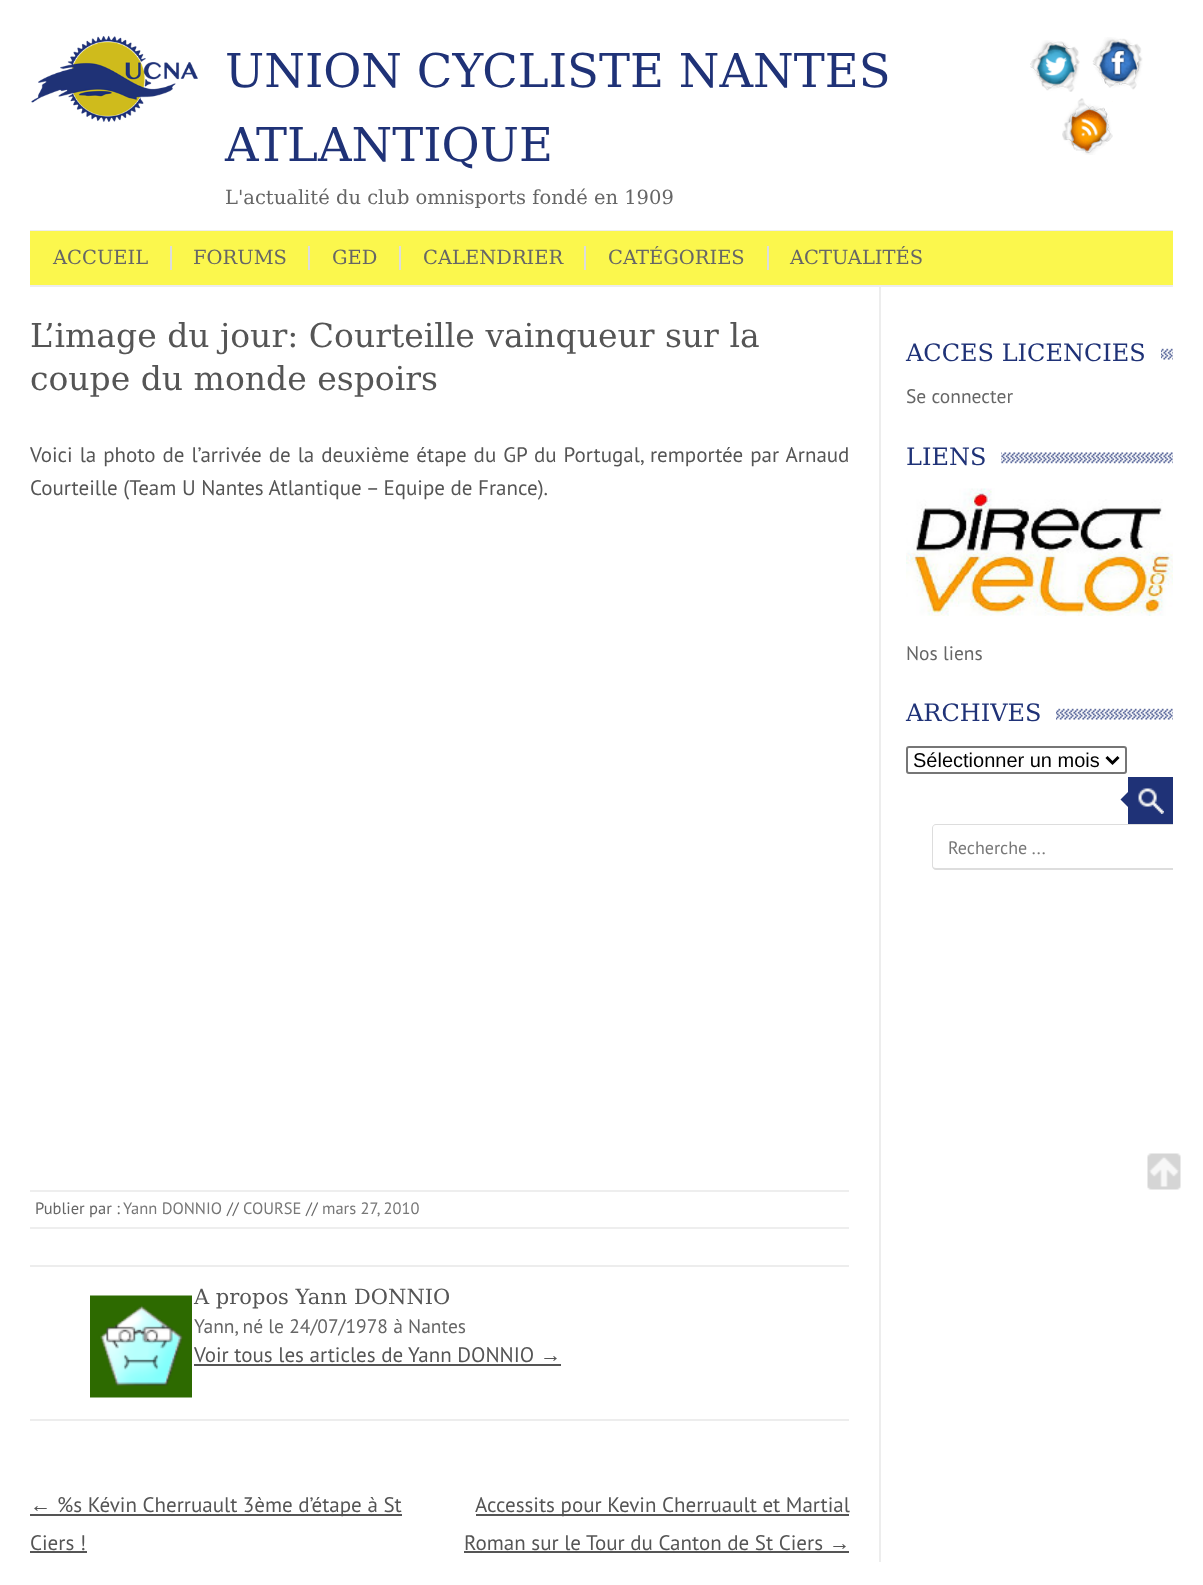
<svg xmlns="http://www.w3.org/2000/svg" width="1203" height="1585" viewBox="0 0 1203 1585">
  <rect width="100%" height="100%" fill="#fff"/>
  <image x="31" y="35" width="167" height="87" href="img/1.png"/>
  <image x="1030" y="40" width="50" height="52" href="img/2.png"/>
  <image x="1092" y="37" width="51" height="53" href="img/3.png"/>
  <image x="1062" y="98" width="51" height="57" href="img/4.png"/>
  <path d="M30 230h1143v1H30z" fill="#ededed"/>
  <path d="M30 285h1143v2H30z" fill="#ededed"/>
  <path d="M30 231h1143v54H30z" fill="#fbf74d"/>
  <path d="M170 246h2v24H170z" fill="#ddd"/>
  <path d="M308 246h2v24H308z" fill="#ddd"/>
  <path d="M399 246h2v24H399z" fill="#ddd"/>
  <path d="M584 246h2v24H584z" fill="#ddd"/>
  <path d="M767 246h2v24H767z" fill="#ddd"/>
  <path d="M879 287h2v1275H879z" fill="#ededed"/>
  <path d="M30 1190h819v2H30z" fill="#eee"/>
  <path d="M30 1227h819v2H30z" fill="#eee"/>
  <path d="M30 1265h819v2H30z" fill="#ededed"/>
  <path d="M30 1419h819v2H30z" fill="#ededed"/>
  <image x="90" y="1295" width="102" height="103" href="img/5.png"/>
  <path d="M194 1364h367v2H194z" fill="#555"/>
  <path d="M30 1514h372v2H30z" fill="#555"/>
  <path d="M30 1551h57v2H30z" fill="#555"/>
  <path d="M476 1514h373v2H476z" fill="#555"/>
  <path d="M464 1551h385v2H464z" fill="#555"/>
  <image x="1161" y="348" width="12" height="12" href="img/6.png"/>
  <image x="1001" y="452" width="172" height="12" href="img/7.png"/>
  <image x="906" y="488" width="267" height="128" href="img/8.png"/>
  <image x="1056" y="708" width="117" height="12" href="img/9.png"/>
  <rect x="907" y="747" width="219" height="26" rx="2" fill="none" stroke="#767676" stroke-width="2"/>
  <path d="M1106.5 757L1112.5 763L1118.5 757" fill="none" stroke="#000" stroke-width="3"/>
  <path d="M1128 792V807L1120.5 799.5Z" fill="#1f3277"/>
  <path d="M1128 777h45v47H1128z" fill="#1f3277"/>
  <image x="1138" y="788" width="26" height="26" href="img/10.png"/>
  <path d="M936 824H1173V870H936C934 870 932 868 932 866V828C932 826 934 824 936 824ZM936 825H1173V868H936C934 868 933 867 933 866V828C933 826 934 825 936 825Z" fill="#ddd" fill-rule="evenodd"/>
  <image x="1147" y="1153" width="34" height="37" href="img/11.png"/>
  <g font-family="DejaVu Serif" font-size="46.5" fill="#1f3277">
    <text x="225" y="87">UNION CYCLISTE NANTES</text>
    <text x="225" y="161">ATLANTIQUE</text>
  </g>
  <g font-family="DejaVu Serif" font-size="19.5" fill="#666">
    <text x="225" y="204">L'actualité du club omnisports fondé en 1909</text>
    <text x="53" y="264">ACCUEIL</text>
    <text x="193" y="264">FORUMS</text>
    <text x="332" y="264">GED</text>
    <text x="423" y="264">CALENDRIER</text>
    <text x="608" y="264">CATÉGORIES</text>
    <text x="790" y="264">ACTUALITÉS</text>
  </g>
  <g font-family="DejaVu Serif" font-size="33" fill="#555">
    <text x="30" y="347">L’image du jour: Courteille vainqueur sur la</text>
    <text x="30" y="390">coupe du monde espoirs</text>
  </g>
  <g font-family="PT Sans" font-size="21" fill="#555">
    <text x="30" y="462" word-spacing="1.4">Voici la photo de l’arrivée de la deuxième étape du GP du Portugal, remportée par Arnaud</text>
    <text x="30" y="495">Courteille (Team U Nantes Atlantique – Equipe de France).</text>
  </g>
  <text x="35" y="1214" font-family="PT Sans" font-size="16.5" fill="#666">Publier par :</text>
  <text x="123" y="1214" font-family="PT Sans" font-size="16.5" fill="#777">Yann DONNIO</text>
  <text x="227" y="1214" font-family="PT Sans" font-size="16.5" fill="#666">//</text>
  <text x="243" y="1214" font-family="PT Sans" font-size="16.5" fill="#777">COURSE</text>
  <text x="306" y="1214" font-family="PT Sans" font-size="16.5" fill="#666">//</text>
  <text x="322" y="1214" font-family="PT Sans" font-size="16.5" fill="#777">mars 27, 2010</text>
  <text x="194" y="1304" font-family="DejaVu Serif" font-size="21" fill="#555">A propos Yann DONNIO</text>
  <text x="194" y="1333" font-family="PT Sans" font-size="19.5" fill="#666">Yann, né le 24/07/1978 à Nantes</text>
  <text x="194" y="1362" font-family="PT Sans" font-size="21" fill="#555">Voir tous les articles de Yann DONNIO</text>
  <g font-family="Liberation Sans" font-size="21" fill="#555">
    <text x="540" y="1362">→</text>
    <text x="30" y="1512">←</text>
  </g>
  <g font-family="PT Sans" font-size="21" fill="#555">
    <text x="57" y="1512">%s Kévin Cherruault 3ème d’étape à St</text>
    <text x="30" y="1550">Ciers !</text>
    <text x="475" y="1512">Accessits pour Kevin Cherruault et Martial</text>
    <text x="464" y="1550">Roman sur le Tour du Canton de St Ciers</text>
  </g>
  <text x="829" y="1550" font-family="Liberation Sans" font-size="21" fill="#555">→</text>
  <text x="906" y="361" font-family="DejaVu Serif" font-size="24" fill="#1f3277">ACCES LICENCIES</text>
  <text x="906" y="403" font-family="PT Sans" font-size="19.5" fill="#666">Se connecter</text>
  <text x="906" y="465" font-family="DejaVu Serif" font-size="24" fill="#1f3277">LIENS</text>
  <text x="906" y="660" font-family="PT Sans" font-size="19.5" fill="#666">Nos liens</text>
  <text x="906" y="721" font-family="DejaVu Serif" font-size="24" fill="#1f3277">ARCHIVES</text>
  <text x="913" y="767" font-family="Liberation Sans" font-size="20" fill="#000">Sélectionner un mois</text>
  <text x="948" y="854" font-family="PT Sans" font-size="18" fill="#777">Recherche ...</text>
</svg>
